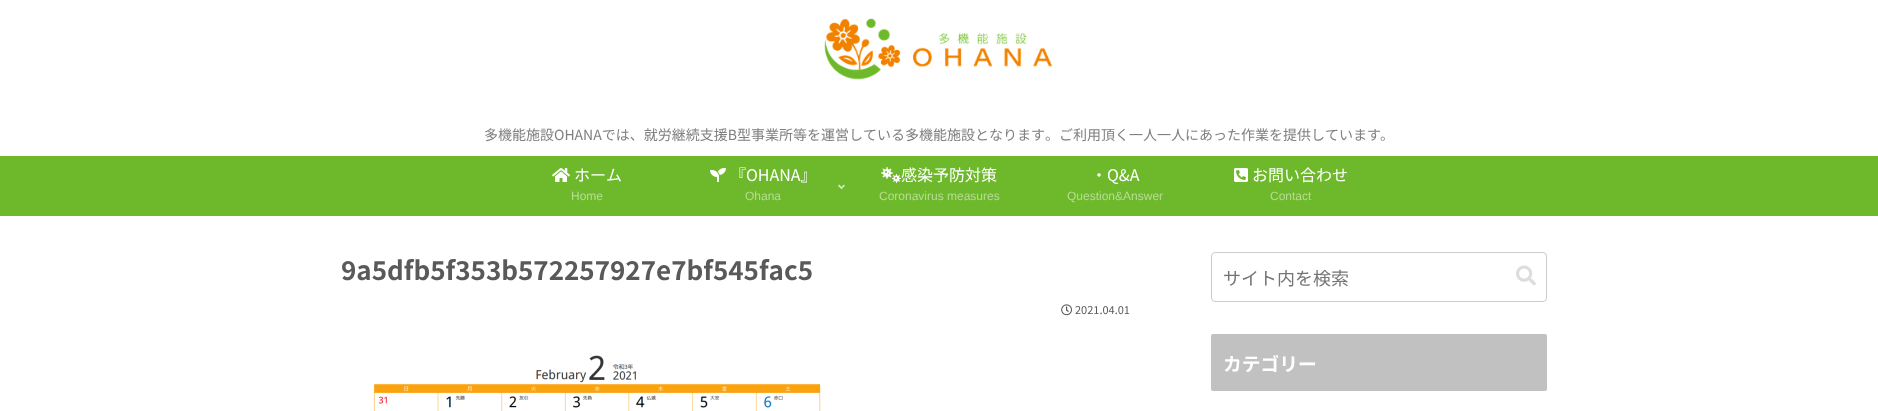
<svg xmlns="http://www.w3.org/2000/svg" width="1878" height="411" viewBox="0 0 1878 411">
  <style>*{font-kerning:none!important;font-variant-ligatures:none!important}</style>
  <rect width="100%" height="100%" fill="#fff"/>
  <image x="824" y="18" width="229" height="62" href="img/1.png"/>
  <path d="M0 156h1878v60H0z" fill="#6eb92b"/>
  <image x="552" y="168" width="18" height="14" href="img/2.png"/>
  <image x="710" y="168" width="16" height="14" href="img/3.png"/>
  <image x="838" y="184" width="7" height="5" href="img/4.png"/>
  <image x="881" y="167" width="20" height="16" href="img/5.png"/>
  <image x="1234" y="168" width="14" height="14" href="img/6.png"/>
  <image x="1061" y="304" width="11" height="12" href="img/7.png"/>
  <image x="373" y="355" width="448" height="56" href="img/8.png"/>
  <rect x="1211.5" y="252.5" width="335" height="49" rx="3.5" fill="none" stroke="#ccc"/>
  <image x="1516" y="265" width="20" height="21" href="img/9.png"/>
  <rect x="1211" y="334" width="336" height="57" rx="2" fill="#c1c1c1"/>
  <text x="484" y="140" font-family="Noto Sans JP" font-size="14" fill="#7f7f7f">多機能施設OHANAでは、就労継続支援B型事業所等を運営している多機能施設となります。ご利用頂く一人一人にあった作業を提供しています</text>
  <text x="1380" y="140" font-family="Noto Sans JP" font-size="14" fill="#7f7f7f">。</text>
  <text x="574" y="181" font-family="Noto Sans JP" font-size="16" fill="#fff">ホーム</text>
  <text x="571" y="200" font-family="Liberation Sans" font-size="12" fill="#b7dc95">Home</text>
  <text x="730" y="181" font-family="Noto Sans JP" font-size="16" fill="#fff">『OHANA』</text>
  <text x="745" y="200" font-family="Liberation Sans" font-size="12" fill="#b7dc95">Ohana</text>
  <text x="901" y="181" font-family="Noto Sans JP" font-size="16" fill="#fff">感染予防対策</text>
  <text x="879" y="200" font-family="Liberation Sans" font-size="12" fill="#b7dc95">Coronavirus measures</text>
  <text x="1091" y="181" font-family="Noto Sans JP" font-size="16" fill="#fff">・Q&amp;A</text>
  <text x="1067" y="200" font-family="Liberation Sans" font-size="12" fill="#b7dc95">Question&amp;Answer</text>
  <text x="1252" y="181" font-family="Noto Sans JP" font-size="16" fill="#fff">お問い合わせ</text>
  <text x="1270" y="200" font-family="Liberation Sans" font-size="12" fill="#b7dc95">Contact</text>
  <text x="341" y="280" font-family="Noto Sans JP" font-size="26" font-weight="bold" fill="#595959">9a5dfb5f353b572257927e7bf545fac5</text>
  <text x="1075" y="314" font-family="Noto Sans JP" font-size="11" fill="#595959">2021.04.01</text>
  <text x="1223" y="285" font-family="Noto Sans JP" font-size="18" fill="#757575">サイト内を検索</text>
  <text x="1223" y="371" font-family="Noto Sans JP" font-size="18.75" font-weight="bold" fill="#fff">カテゴリー</text>
</svg>
